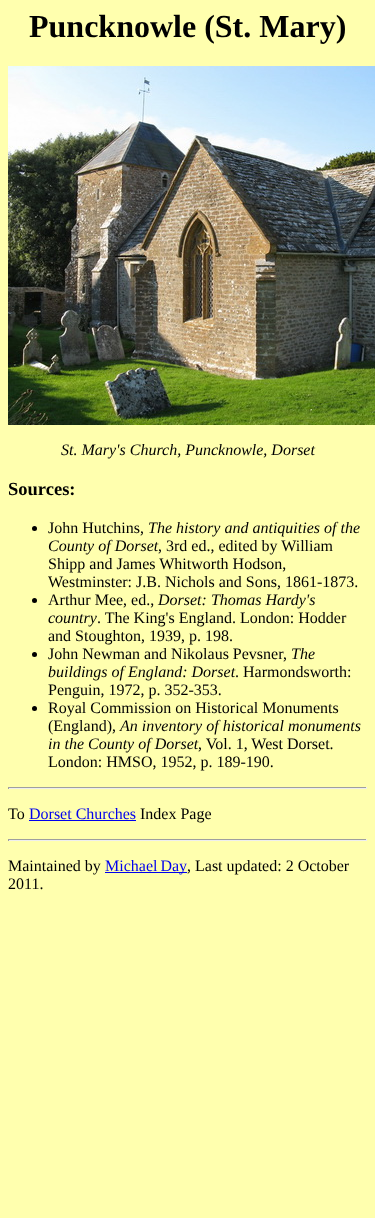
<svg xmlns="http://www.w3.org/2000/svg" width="375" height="1218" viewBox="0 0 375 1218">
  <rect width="100%" height="100%" fill="#ffffae"/>
  <image x="8" y="66" width="367" height="359" href="img/1.png"/>
  <circle cx="34.5" cy="528.5" r="2.5" fill="#000"/>
  <circle cx="34.5" cy="600.5" r="2.5" fill="#000"/>
  <circle cx="34.5" cy="654.5" r="2.5" fill="#000"/>
  <circle cx="34.5" cy="708.5" r="2.5" fill="#000"/>
  <path d="M8 787h359v1H8z" fill="#9f9f9f"/>
  <path d="M366 787h1v2H366z" fill="#eee"/>
  <path d="M8 788h359v1H8z" fill="#eee"/>
  <path d="M8 787h1v2H8z" fill="#9f9f9f"/>
  <path d="M29 820h107v1H29z" fill="#00e"/>
  <path d="M8 839h359v1H8z" fill="#9f9f9f"/>
  <path d="M366 839h1v2H366z" fill="#eee"/>
  <path d="M8 840h359v1H8z" fill="#eee"/>
  <path d="M8 839h1v2H8z" fill="#9f9f9f"/>
  <path d="M105 872h82v1H105z" fill="#00e"/>
  <text x="29" y="37" font-family="Liberation Serif" font-size="32" font-weight="bold" fill="#000">Puncknowle (St. Mary)</text>
  <text x="61" y="455" font-family="Liberation Serif" font-size="16" font-style="italic" fill="#000">St. Mary's Church, Puncknowle, Dorset</text>
  <text x="8" y="495" font-family="Liberation Serif" font-size="18.5" font-weight="bold" fill="#000">Sources:</text>
  <text x="48" y="533" font-family="Liberation Serif" font-size="16" fill="#000">John Hutchins,</text>
  <g font-family="Liberation Serif" font-size="16" font-style="italic" fill="#000">
    <text x="148" y="533">The history and antiquities of the</text>
    <text x="48" y="551">County of Dorset</text>
  </g>
  <g font-family="Liberation Serif" font-size="16" fill="#000">
    <text x="158" y="551">, 3rd ed., edited by William</text>
    <text x="48" y="569">Shipp and James Whitworth Hodson,</text>
    <text x="48" y="587">Westminster: J.B. Nichols and Sons, 1861-1873.</text>
    <text x="48" y="605">Arthur Mee, ed.,</text>
  </g>
  <g font-family="Liberation Serif" font-size="16" font-style="italic" fill="#000">
    <text x="158" y="605">Dorset: Thomas Hardy's</text>
    <text x="48" y="623">country</text>
  </g>
  <g font-family="Liberation Serif" font-size="16" fill="#000">
    <text x="97" y="623">. The King's England. London: Hodder</text>
    <text x="48" y="641">and Stoughton, 1939, p. 198.</text>
    <text x="48" y="659">John Newman and Nikolaus Pevsner,</text>
  </g>
  <g font-family="Liberation Serif" font-size="16" font-style="italic" fill="#000">
    <text x="291" y="659">The</text>
    <text x="48" y="677">buildings of England: Dorset</text>
  </g>
  <g font-family="Liberation Serif" font-size="16" fill="#000">
    <text x="235" y="677">. Harmondsworth:</text>
    <text x="48" y="695">Penguin, 1972, p. 352-353.</text>
    <text x="48" y="713">Royal Commission on Historical Monuments</text>
    <text x="48" y="731">(England),</text>
  </g>
  <g font-family="Liberation Serif" font-size="16" font-style="italic" fill="#000">
    <text x="120" y="731">An inventory of historical monuments</text>
    <text x="48" y="749">in the County of Dorset</text>
  </g>
  <g font-family="Liberation Serif" font-size="16" fill="#000">
    <text x="198" y="749">, Vol. 1, West Dorset.</text>
    <text x="48" y="767">London: HMSO, 1952, p. 189-190.</text>
    <text x="8" y="819">To</text>
  </g>
  <text x="29" y="819" font-family="Liberation Serif" font-size="16" fill="#00e">Dorset Churches</text>
  <g font-family="Liberation Serif" font-size="16" fill="#000">
    <text x="140" y="819">Index Page</text>
    <text x="8" y="871">Maintained by</text>
  </g>
  <text x="105" y="871" word-spacing="-1" font-family="Liberation Serif" font-size="16" fill="#00e">Michael Day</text>
  <g font-family="Liberation Serif" font-size="16" fill="#000">
    <text x="187" y="871">, Last updated: 2 October</text>
    <text x="8" y="889">2011.</text>
  </g>
</svg>
